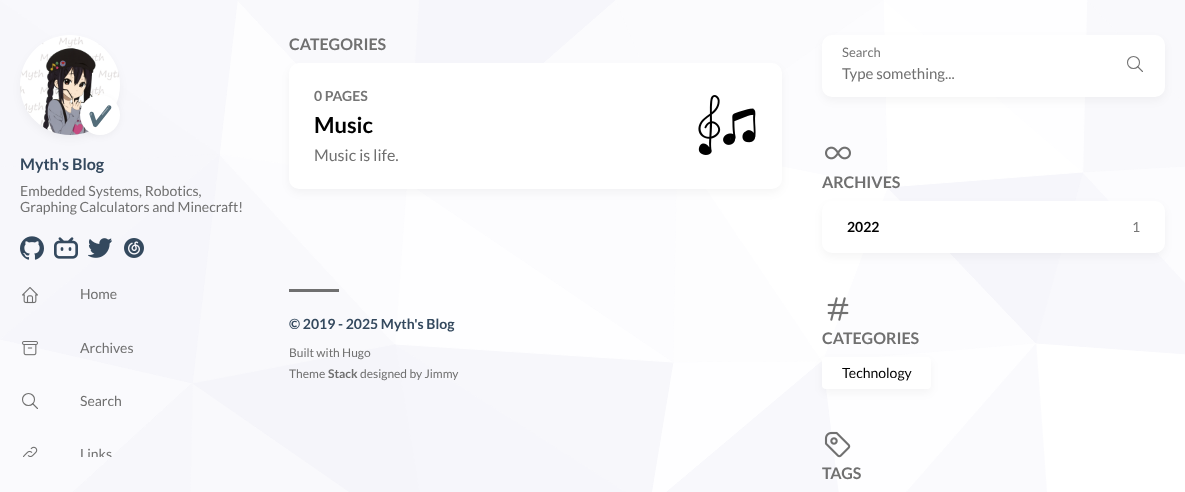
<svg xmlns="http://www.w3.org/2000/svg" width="1185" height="492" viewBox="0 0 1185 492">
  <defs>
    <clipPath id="clip1"><path d="M20 283h229v174H20z"/></clipPath>
  </defs>
  <rect width="100%" height="100%" fill="#fff"/>
  <image x="0" y="0" width="1185" height="492" href="img/1.png"/>
  <rect x="20" y="39" width="100" height="100" rx="50" fill="#0000000a" filter="blur(4px)"/>
  <image x="20" y="35" width="100" height="100" href="img/2.png"/>
  <rect x="80" y="97" width="40" height="40" rx="20" fill="#0000000a" filter="blur(3px)"/>
  <circle cx="100" cy="115" r="20" fill="#fff"/>
  <image x="20" y="236" width="24" height="24" href="img/3.png"/>
  <image x="54" y="237" width="24" height="22" href="img/4.png"/>
  <image x="88" y="238" width="24" height="20" href="img/5.png"/>
  <image x="124" y="238" width="20" height="20" href="img/6.png"/>
  <image x="22" y="287" width="16" height="17" href="img/7.png"/>
  <image x="22" y="341" width="16" height="15" href="img/8.png"/>
  <circle cx="28.5" cy="399.5" r="6" fill="none" stroke="#707070" stroke-width="1.1"/>
  <path d="M37.5 408.5L32.5 403.5" fill="none" stroke="#707070" stroke-width="1.1" stroke-linecap="round" stroke-linejoin="round"/>
  <image x="23" y="446" width="15" height="11" href="img/9.png"/>
  <rect x="289" y="67" width="493" height="126" rx="10" fill="#0000000a" filter="blur(4px)"/>
  <rect x="289" y="63" width="493" height="126" rx="10" fill="#fff"/>
  <image x="698" y="95" width="58" height="60" href="img/10.png"/>
  <path d="M289 289h50v3H289z" fill="#707070"/>
  <rect x="822" y="39" width="343" height="62" rx="10" fill="#0000000a" filter="blur(4px)"/>
  <rect x="822" y="35" width="343" height="62" rx="10" fill="#fff"/>
  <circle cx="1133.5" cy="62.5" r="6" fill="none" stroke="#747474" stroke-width="1.1"/>
  <path d="M1142.5 71.5L1137.5 66.5" fill="none" stroke="#747474" stroke-width="1.1" stroke-linecap="round" stroke-linejoin="round"/>
  <image x="825" y="146" width="26" height="14" href="img/11.png"/>
  <rect x="822" y="205" width="343" height="52" rx="10" fill="#0000000a" filter="blur(4px)"/>
  <rect x="822" y="201" width="343" height="52" rx="10" fill="#fff"/>
  <image x="827" y="297" width="22" height="24" href="img/12.png"/>
  <rect x="822" y="361" width="109" height="32" rx="4" fill="#0000000a" filter="blur(4px)"/>
  <rect x="822" y="357" width="109" height="32" rx="4" fill="#fff"/>
  <image x="824" y="431" width="27" height="27" href="img/13.png"/>
  <text x="88" y="123" font-family="Noto Color Emoji" font-size="20" fill="#000">✔️</text>
  <text x="20" y="170" font-family="Lato" font-size="16" font-weight="bold" fill="#34495e">Myth's Blog</text>
  <g font-family="Lato" font-size="14" fill="#707070">
    <text x="20" y="196">Embedded Systems, Robotics,</text>
    <text x="20" y="212">Graphing Calculators and Minecraft!</text>
    <text x="80" y="299">Home</text>
    <text x="80" y="353">Archives</text>
    <text x="80" y="406">Search</text>
  </g>
  <g clip-path="url(#clip1)">
    <text x="80" y="459" font-family="Lato" font-size="14" fill="#707070">Links</text>
  </g>
  <text x="289" y="50" font-family="Lato" font-size="16" font-weight="bold" fill="#707070">CATEGORIES</text>
  <text x="314" y="101" font-family="Lato" font-size="14" font-weight="bold" fill="#767676">0 PAGES</text>
  <text x="314" y="133" font-family="Lato" font-size="22" font-weight="bold" fill="#000">Music</text>
  <text x="314" y="161" font-family="Lato" font-size="16" fill="#707070">Music is life.</text>
  <text x="289" y="329" font-family="Lato" font-size="14" font-weight="bold" fill="#34495e">© 2019 - 2025 Myth's Blog</text>
  <g font-family="Lato" font-size="12" fill="#707070">
    <text x="289" y="357">Built with Hugo</text>
    <text x="289" y="378">Theme</text>
  </g>
  <text x="328" y="378" font-family="Lato" font-size="12" font-weight="bold" fill="#707070">Stack</text>
  <text x="360" y="378" font-family="Lato" font-size="12" fill="#707070">designed by Jimmy</text>
  <text x="842" y="57" font-family="Lato" font-size="13" fill="#767676">Search</text>
  <text x="842" y="79" font-family="Lato" font-size="15" fill="#707070">Type something...</text>
  <text x="822" y="188" font-family="Lato" font-size="16" font-weight="bold" fill="#707070">ARCHIVES</text>
  <text x="847" y="232" font-family="Lato" font-size="14" font-weight="bold" fill="#000">2022</text>
  <text x="1132" y="232" font-family="Lato" font-size="14" fill="#767676">1</text>
  <text x="822" y="344" font-family="Lato" font-size="16" font-weight="bold" fill="#707070">CATEGORIES</text>
  <text x="842" y="378" font-family="Lato" font-size="14" fill="#000">Technology</text>
  <text x="822" y="479" font-family="Lato" font-size="16" font-weight="bold" fill="#707070">TAGS</text>
</svg>
